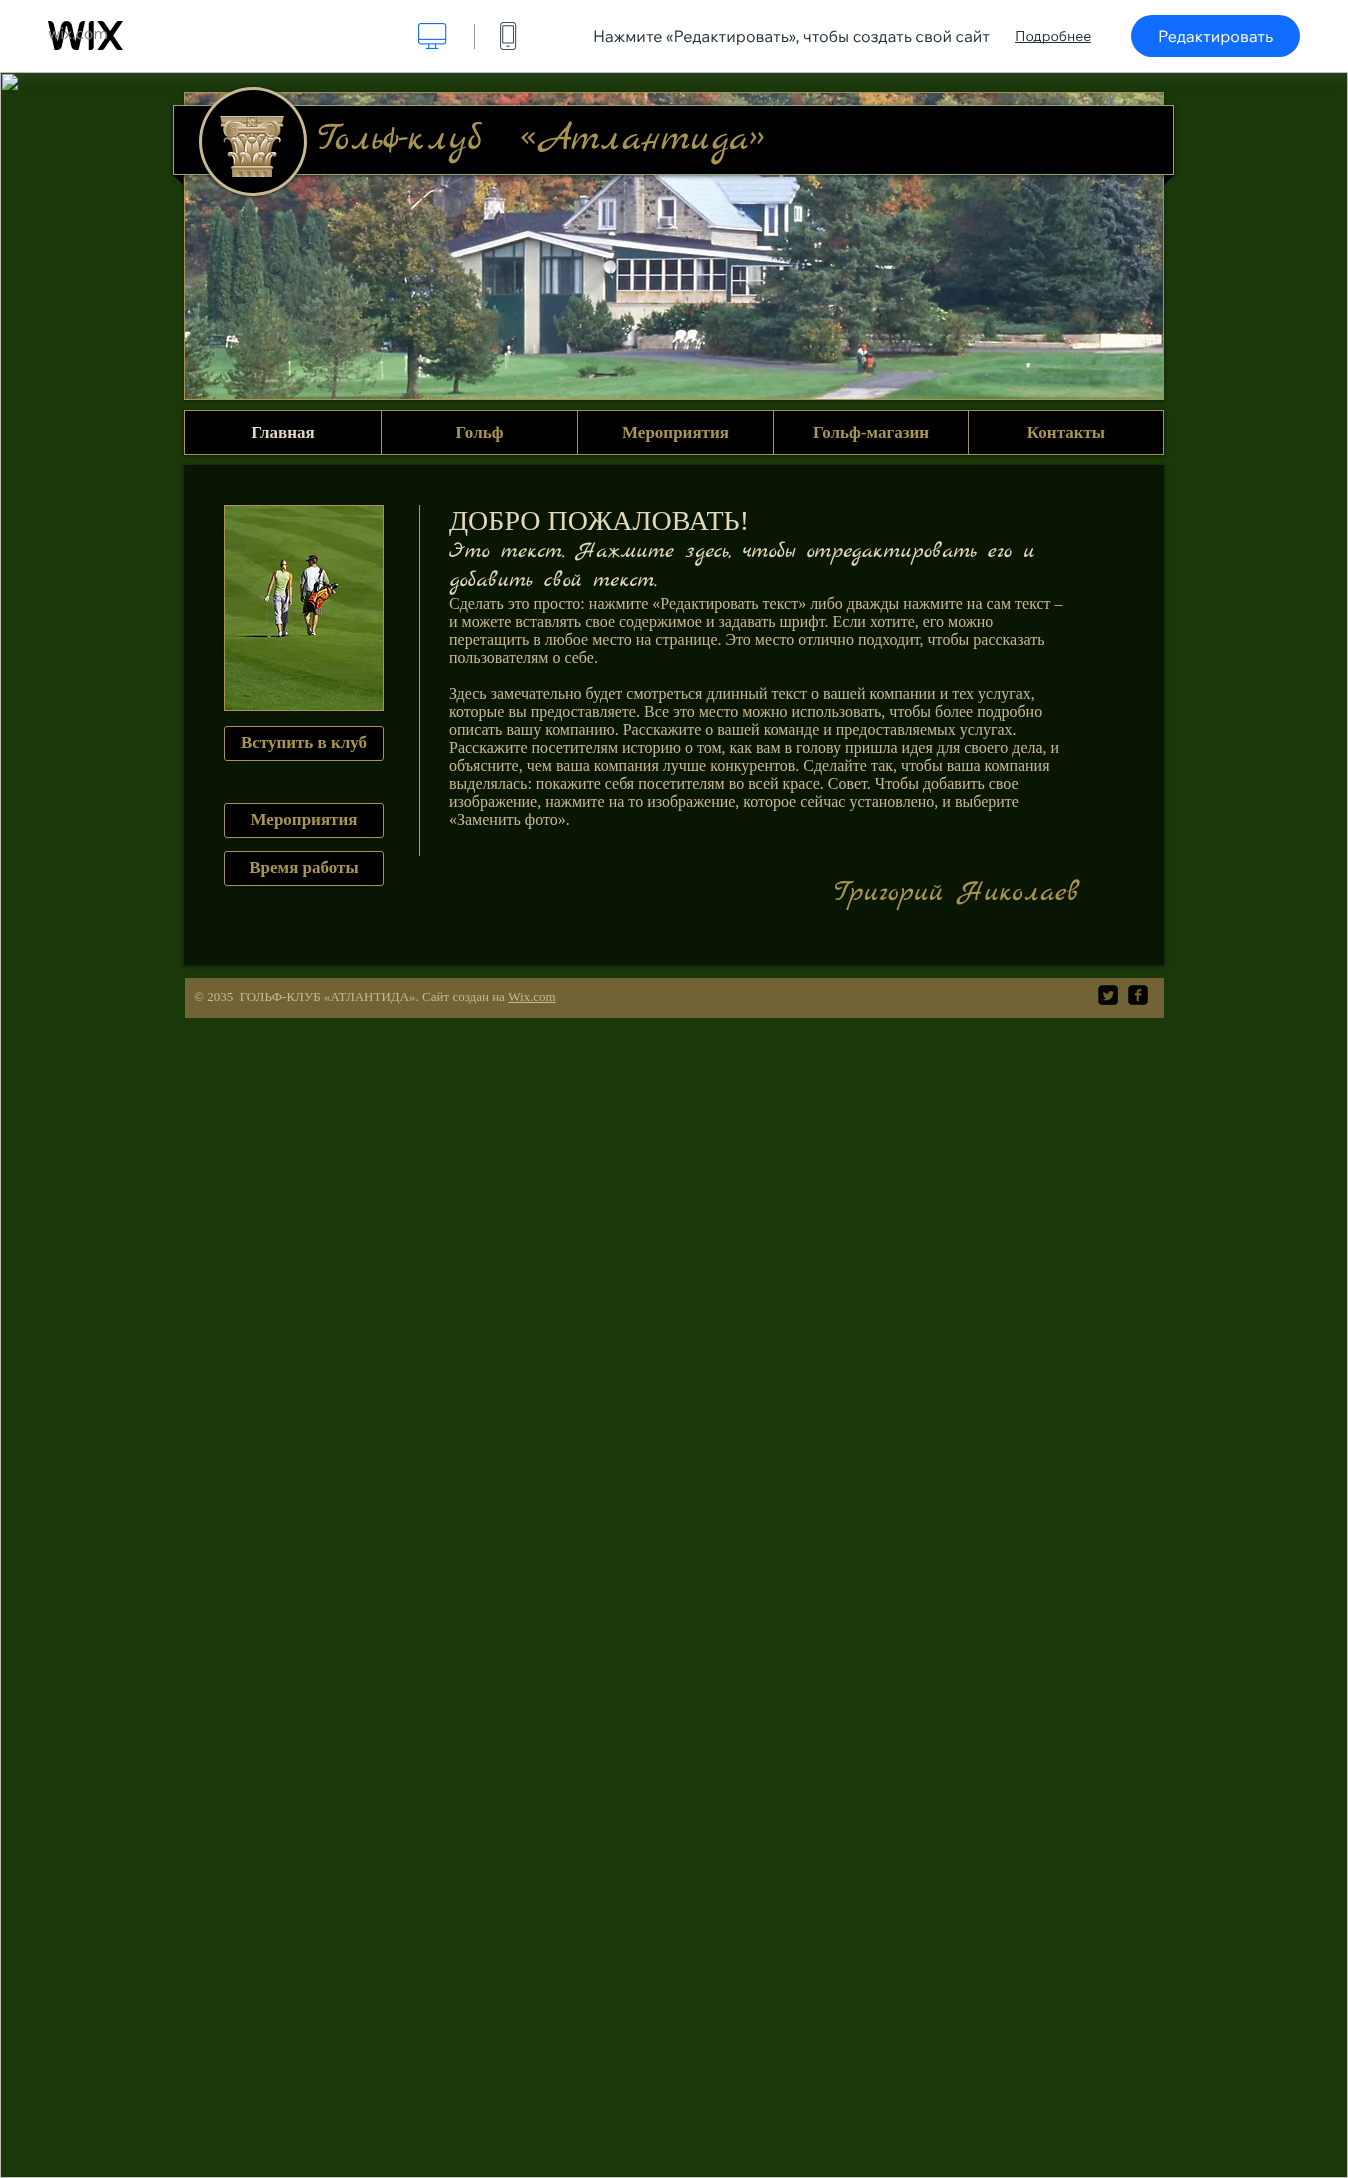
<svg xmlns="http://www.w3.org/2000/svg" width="1348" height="2178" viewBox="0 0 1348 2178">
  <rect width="100%" height="100%" fill="#fff"/>
  <image x="0" y="72" width="1348" height="2106" href="img/4.png"/>
  <path d="M0 2h1348v72H0z" fill="#81a2b633" filter="blur(9px)"/>
  <path d="M0 0h1348v72H0z" fill="#fff"/>
  <image x="48" y="21" width="75" height="29" href="img/1.png"/>
  <image x="418" y="23" width="29" height="26" href="img/2.png"/>
  <path d="M474 24h1v25H474z" fill="#90989e"/>
  <image x="500" y="22" width="17" height="28" href="img/3.png"/>
  <path d="M1015 42h76v1H1015z" fill="#20303c"/>
  <rect x="1131" y="15" width="169" height="42" rx="21" fill="#116dff"/>
  <text x="48" y="39" font-family="Wix Madefor Text" font-size="16" fill="#888">wix.com</text>
  <text x="593" y="42" font-family="Wix Madefor Text" font-size="16" fill="#20303c">Нажмите «Редактировать», чтобы создать свой сайт</text>
  <text x="1015" y="41" font-family="Wix Madefor Text" font-size="14" fill="#20303c">Подробнее</text>
  <text x="1158" y="42" font-family="Wix Madefor Text" font-size="16" fill="#fff">Редактировать</text>
</svg>
